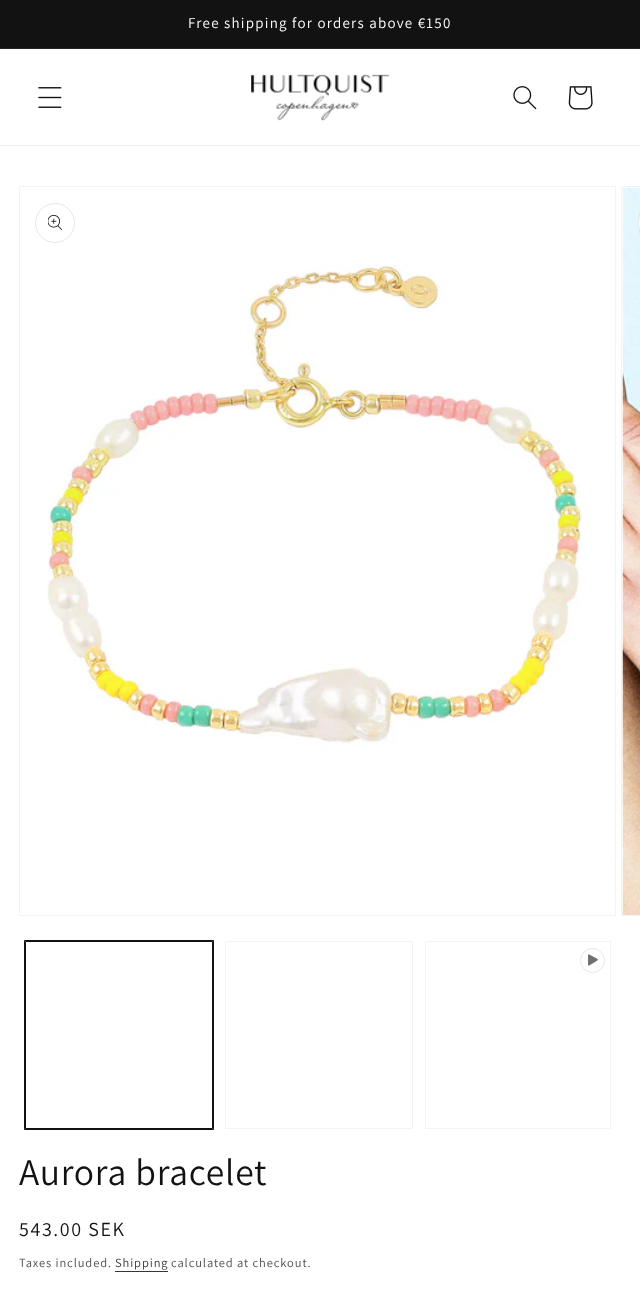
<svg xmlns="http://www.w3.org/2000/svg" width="640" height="1302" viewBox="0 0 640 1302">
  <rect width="100%" height="100%" fill="#fff"/>
  <path d="M0 0h640v48H0z" fill="#121212"/>
  <path d="M0 48h640v1H0z" fill="#252525"/>
  <path d="M0 145h640v1H0z" fill="#ececec"/>
  <image x="38" y="87" width="24" height="21" href="img/1.png"/>
  <image x="251" y="74" width="138" height="47" href="img/2.png"/>
  <image x="513" y="86" width="24" height="24" href="img/3.png"/>
  <image x="568" y="86" width="25" height="24" href="img/4.png"/>
  <path d="M19.5 186.5h596v729H19.5z" fill="none" stroke="#f3f3f3"/>
  <circle cx="55" cy="223" r="19.5" fill="none" stroke="#e7e7e7"/>
  <image x="48" y="215" width="14" height="15" href="img/5.png"/>
  <image x="47" y="265" width="535" height="482" href="img/6.png"/>
  <path d="M621.5 186.5h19v729H621.5z" fill="none" stroke="#f3f3f3"/>
  <image x="622" y="187" width="18" height="728" href="img/7.png"/>
  <path d="M658 203H640V243H658C647 243 638 234 638 223C638 212 647 203 658 203Z" fill="#fff"/>
  <rect x="638.5" y="203.5" width="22" height="39" rx="19.5" fill="none" stroke="#1212121a"/>
  <path d="M24.5 940.5h189v189H24.5z" fill="none" stroke="#121212"/>
  <path d="M25.5 941.5h187v187H25.5z" fill="none" stroke="#121212"/>
  <path d="M225.5 941.5h187v187H225.5z" fill="none" stroke="#f3f3f3"/>
  <path d="M425.5 941.5h185v187H425.5z" fill="none" stroke="#f3f3f3"/>
  <circle cx="592.5" cy="960.5" r="12" fill="none" stroke="#e7e7e7"/>
  <image x="588" y="954" width="10" height="12" href="img/8.png"/>
  <path d="M115 1271h53v1H115z" fill="#363636"/>
  <text x="188" y="28" font-family="Assistant" font-size="15" letter-spacing="1.25" fill="#fff">Free shipping for orders above €150</text>
  <text x="19" y="1185" font-family="Assistant" font-size="37.5" letter-spacing="0.75" fill="#121212">Aurora bracelet</text>
  <text x="19" y="1236" font-family="Assistant" font-size="20" letter-spacing="1.6" fill="#121212">543.00 SEK</text>
  <text x="19" y="1267" font-family="Assistant" font-size="12.5" letter-spacing="0.9" fill="#4d4d4d">Taxes included.</text>
  <text x="115" y="1267" font-family="Assistant" font-size="12.5" letter-spacing="0.9" fill="#363636">Shipping</text>
  <text x="171" y="1267" font-family="Assistant" font-size="12.5" letter-spacing="0.9" fill="#4d4d4d">calculated at checkout.</text>
</svg>
